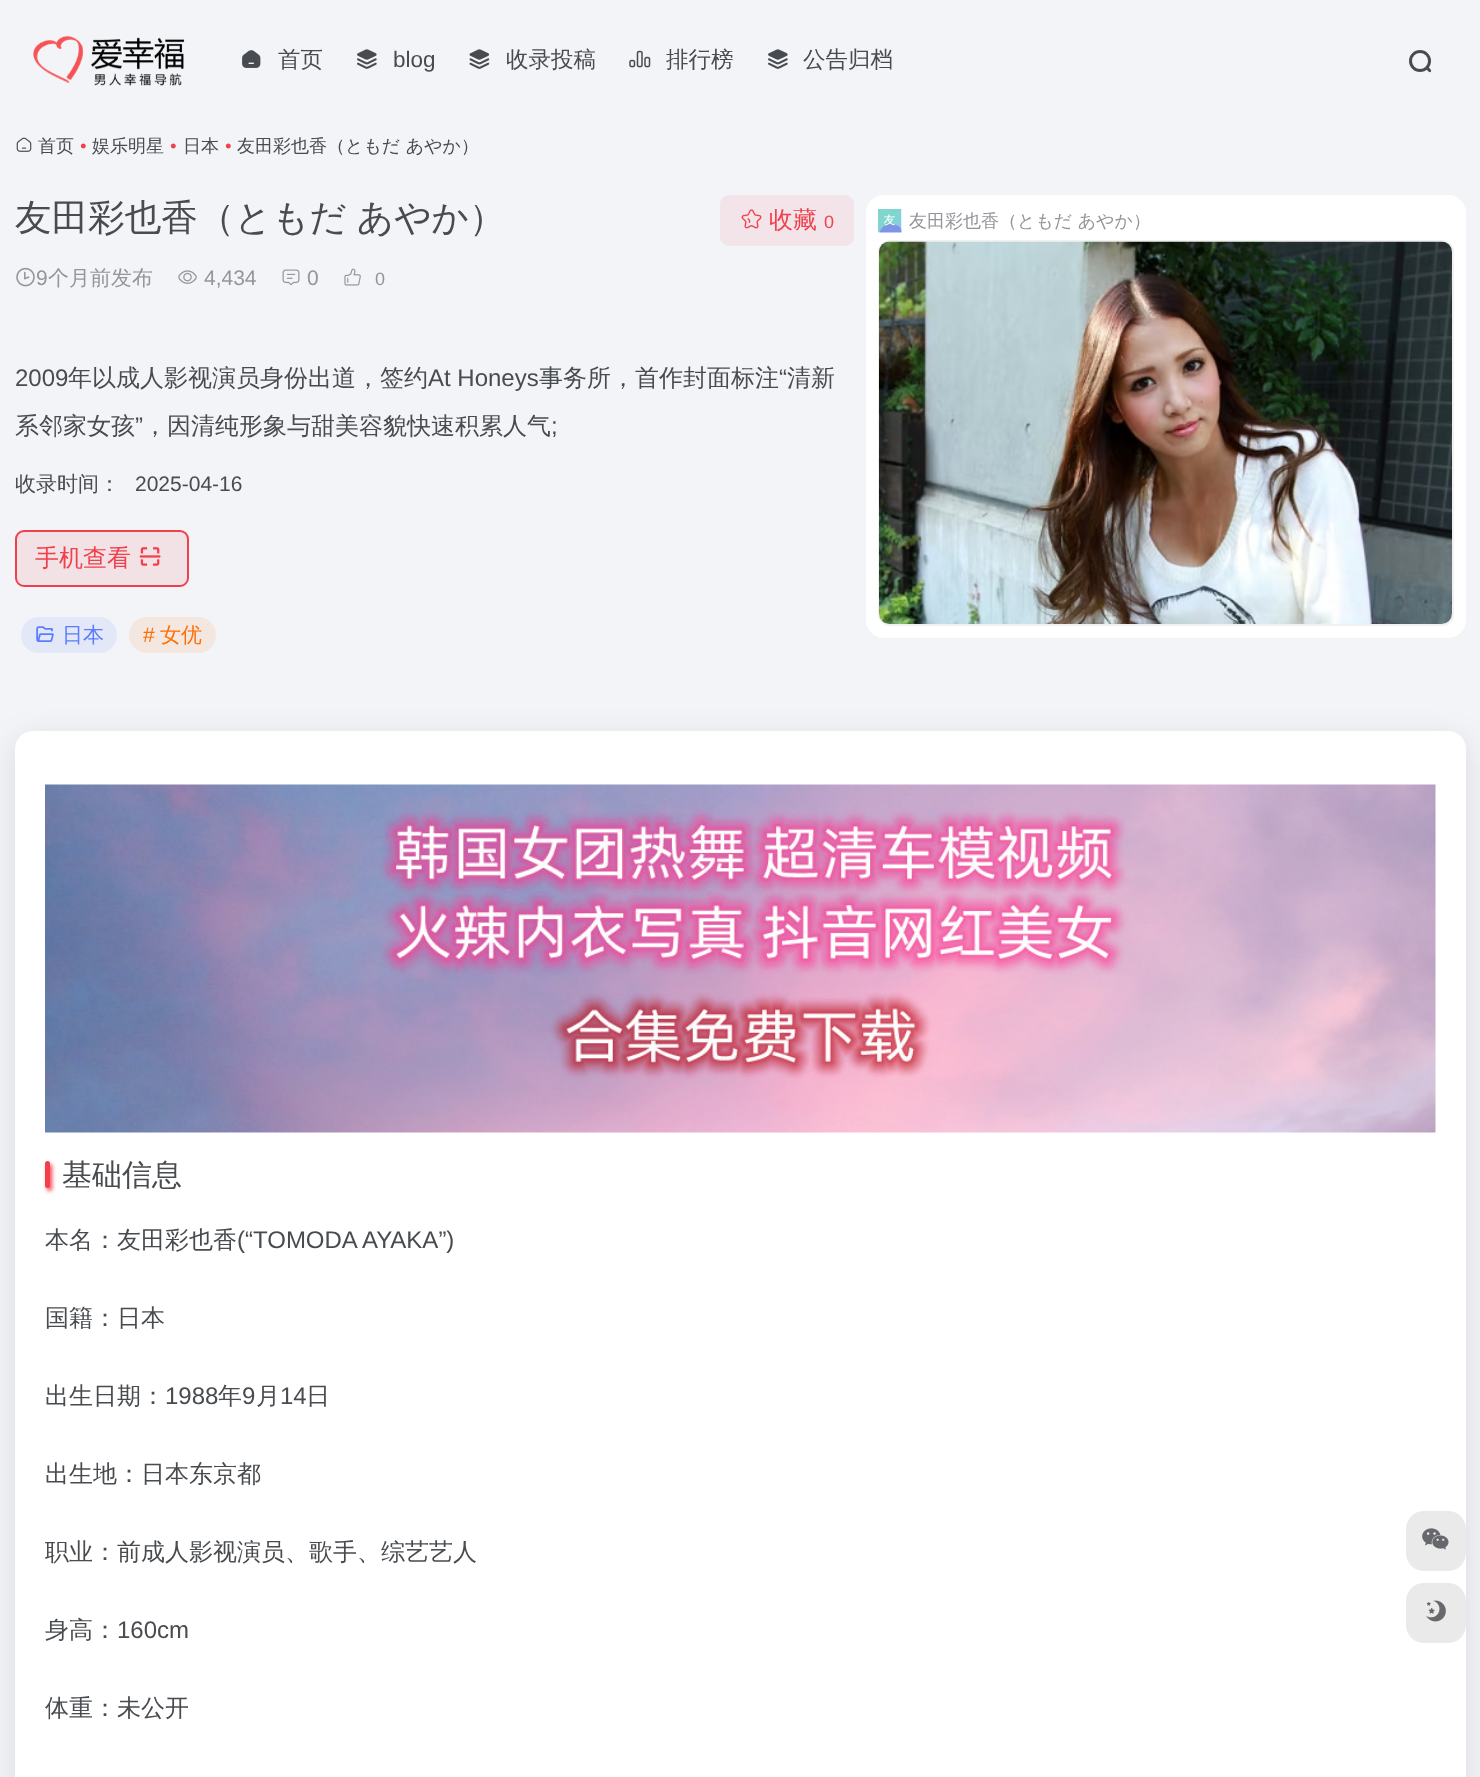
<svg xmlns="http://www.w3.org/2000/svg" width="1480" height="1777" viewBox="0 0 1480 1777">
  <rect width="100%" height="100%" fill="#f2f4f7"/>
  <image x="33" y="36" width="152" height="50" href="img/1.png"/>
  <image x="242" y="50" width="19" height="18" href="img/2.png"/>
  <image x="357" y="49" width="20" height="20" href="img/3.png"/>
  <image x="469" y="49" width="21" height="20" href="img/4.png"/>
  <image x="629" y="50" width="22" height="18" href="img/5.png"/>
  <image x="768" y="49" width="20" height="20" href="img/3.png"/>
  <circle cx="1420" cy="61" r="9.5" fill="none" stroke="#484b4f" stroke-width="3"/>
  <path d="M1429 67.5L1431 70C1431.5 71.5 1430.5 72.5 1429 72L1426.5 69.5C1425.5 68 1427.5 66.5 1429 67.5Z" fill="#484b4f"/>
  <image x="16" y="137" width="16" height="15" href="img/6.png"/>
  <image x="16" y="267" width="19" height="20" href="img/7.png"/>
  <image x="178" y="270" width="19" height="14" href="img/8.png"/>
  <image x="282" y="269" width="18" height="16" href="img/9.png"/>
  <image x="344" y="268" width="17" height="18" href="img/10.png"/>
  <rect x="720" y="195" width="134" height="51" rx="9" fill="#f3e4ea"/>
  <image x="741" y="209" width="21" height="20" href="img/11.png"/>
  <rect x="16" y="531" width="172" height="55" rx="8" fill="#f2e2e6" stroke="#f1404b" stroke-width="2"/>
  <image x="139" y="547" width="22" height="19" href="img/12.png"/>
  <rect x="21" y="617" width="96" height="36" rx="18" fill="#e3e8f8"/>
  <image x="36" y="626" width="18" height="16" href="img/13.png"/>
  <rect x="129" y="617" width="87" height="36" rx="18" fill="#f3e7df"/>
  <rect x="866" y="195" width="600" height="443" rx="18" fill="#fff"/>
  <image x="878" y="209" width="24" height="24" href="img/14.png"/>
  <rect x="879" y="241" width="574" height="384" rx="11" fill="none" stroke="#f1f1f1" stroke-width="2"/>
  <image x="879" y="241" width="573" height="383" href="img/15.png"/>
  <rect x="15" y="738" width="1451" height="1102" rx="18" fill="#0000001a" filter="blur(15px)"/>
  <rect x="15" y="731" width="1451" height="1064" rx="18" fill="#fff"/>
  <image x="45" y="784" width="1391" height="349" href="img/16.png"/>
  <rect x="47" y="1164" width="5" height="27" rx="2.5" fill="#f1404b" filter="blur(2px)"/>
  <rect x="45" y="1161" width="5" height="27" rx="2.5" fill="#f1404b"/>
  <rect x="1406" y="1511" width="60" height="60" rx="18" fill="#eaeaea"/>
  <image x="1422" y="1528" width="27" height="22" href="img/17.png"/>
  <rect x="1406" y="1583" width="60" height="60" rx="18" fill="#eaeaea"/>
  <image x="1426" y="1600" width="20" height="22" href="img/18.png"/>
  <text x="278" y="67" font-family="WenQuanYi Zen Hei" font-size="22.5" font-weight="500" fill="#484b4f">首页</text>
  <text x="393" y="67" font-family="Liberation Sans" font-size="22.5" fill="#484b4f">blog</text>
  <g font-family="WenQuanYi Zen Hei" font-size="22.5" font-weight="500" fill="#484b4f">
    <text x="506" y="67">收录投稿</text>
    <text x="666" y="67">排行榜</text>
    <text x="803" y="67">公告归档</text>
  </g>
  <text x="38" y="152" font-family="WenQuanYi Zen Hei" font-size="18" font-weight="500" fill="#484b4f">首页</text>
  <text x="80" y="152" font-family="Liberation Sans" font-size="18" font-style="italic" fill="#f1404b">•</text>
  <text x="92" y="152" font-family="WenQuanYi Zen Hei" font-size="18" font-weight="500" fill="#484b4f">娱乐明星</text>
  <text x="170" y="152" font-family="Liberation Sans" font-size="18" font-style="italic" fill="#f1404b">•</text>
  <text x="183" y="152" font-family="WenQuanYi Zen Hei" font-size="18" font-weight="500" fill="#484b4f">日本</text>
  <text x="225" y="152" font-family="Liberation Sans" font-size="18" font-style="italic" fill="#f1404b">•</text>
  <text x="237" y="152" font-family="WenQuanYi Zen Hei" font-size="18" font-weight="500" fill="#484b4f">友田彩也香（ともだ あやか）</text>
  <text x="15" y="230" word-spacing="-1" font-family="WenQuanYi Zen Hei" font-size="36.6" font-weight="500" fill="#484b4f">友田彩也香（ともだ あやか）</text>
  <text x="36" y="285" font-family="Liberation Sans" font-size="21" fill="#93959a">9</text>
  <text x="48" y="285" font-family="WenQuanYi Zen Hei" font-size="21" font-weight="500" fill="#93959a">个月前发布</text>
  <g font-family="Liberation Sans" font-size="21" fill="#93959a">
    <text x="204" y="285">4,434</text>
    <text x="307" y="285">0</text>
  </g>
  <text x="375" y="285" font-family="Liberation Sans" font-size="18" fill="#93959a">0</text>
  <text x="769" y="228" font-family="WenQuanYi Zen Hei" font-size="24" font-weight="500" fill="#f1404b">收藏</text>
  <text x="824" y="228" font-family="Liberation Sans" font-size="18" fill="#f1404b">0</text>
  <text x="15" y="386" font-family="Liberation Sans" font-size="24" fill="#484b4f">2009</text>
  <text x="68" y="386" font-family="WenQuanYi Zen Hei" font-size="24" font-weight="500" fill="#484b4f">年以成人影视演员身份出道，签约</text>
  <text x="428" y="386" font-family="Liberation Sans" font-size="24" fill="#484b4f">At Honeys</text>
  <text x="539" y="386" font-family="WenQuanYi Zen Hei" font-size="24" font-weight="500" fill="#484b4f">事务所，首作封面标注</text>
  <text x="779" y="386" font-family="Liberation Sans" font-size="24" fill="#484b4f">“</text>
  <g font-family="WenQuanYi Zen Hei" font-size="24" font-weight="500" fill="#484b4f">
    <text x="787" y="386">清新</text>
    <text x="15" y="434">系邻家女孩</text>
  </g>
  <text x="135" y="434" font-family="Liberation Sans" font-size="24" fill="#484b4f">”</text>
  <text x="143" y="434" font-family="WenQuanYi Zen Hei" font-size="24" font-weight="500" fill="#484b4f">，因清纯形象与甜美容貌快速积累人气</text>
  <text x="551" y="434" font-family="Liberation Sans" font-size="24" fill="#484b4f">;</text>
  <text x="15" y="491" font-family="WenQuanYi Zen Hei" font-size="21" font-weight="500" fill="#484b4f">收录时间：</text>
  <text x="135" y="491" font-family="Liberation Sans" font-size="21" fill="#484b4f">2025-04-16</text>
  <text x="35" y="566" font-family="WenQuanYi Zen Hei" font-size="24" font-weight="500" fill="#f1404b">手机查看</text>
  <text x="62" y="642" font-family="WenQuanYi Zen Hei" font-size="21" font-weight="500" fill="#5c7cff">日本</text>
  <text x="143" y="642" font-family="Liberation Sans" font-size="21" fill="#ff6f06">#</text>
  <text x="160" y="642" font-family="WenQuanYi Zen Hei" font-size="21" font-weight="500" fill="#ff6f06">女优</text>
  <text x="909" y="227" font-family="WenQuanYi Zen Hei" font-size="18" font-weight="500" fill="#93959a">友田彩也香（ともだ あやか）</text>
  <text x="62" y="1185" font-family="WenQuanYi Zen Hei" font-size="30" font-weight="500" fill="#484b4f">基础信息</text>
  <text x="45" y="1248" font-family="WenQuanYi Zen Hei" font-size="24" font-weight="500" fill="#484b4f">本名：友田彩也香</text>
  <text x="237" y="1248" font-family="Liberation Sans" font-size="24" fill="#484b4f">(“TOMODA AYAKA”)</text>
  <g font-family="WenQuanYi Zen Hei" font-size="24" font-weight="500" fill="#484b4f">
    <text x="45" y="1326">国籍：日本</text>
    <text x="45" y="1404">出生日期：</text>
  </g>
  <text x="165" y="1404" font-family="Liberation Sans" font-size="24" fill="#484b4f">1988</text>
  <text x="218" y="1404" font-family="WenQuanYi Zen Hei" font-size="24" font-weight="500" fill="#484b4f">年</text>
  <text x="242" y="1404" font-family="Liberation Sans" font-size="24" fill="#484b4f">9</text>
  <text x="256" y="1404" font-family="WenQuanYi Zen Hei" font-size="24" font-weight="500" fill="#484b4f">月</text>
  <text x="280" y="1404" font-family="Liberation Sans" font-size="24" fill="#484b4f">14</text>
  <g font-family="WenQuanYi Zen Hei" font-size="24" font-weight="500" fill="#484b4f">
    <text x="306" y="1404">日</text>
    <text x="45" y="1482">出生地：日本东京都</text>
    <text x="45" y="1560">职业：前成人影视演员、歌手、综艺艺人</text>
    <text x="45" y="1638">身高：</text>
  </g>
  <text x="117" y="1638" font-family="Liberation Sans" font-size="24" fill="#484b4f">160cm</text>
  <text x="45" y="1716" font-family="WenQuanYi Zen Hei" font-size="24" font-weight="500" fill="#484b4f">体重：未公开</text>
</svg>
